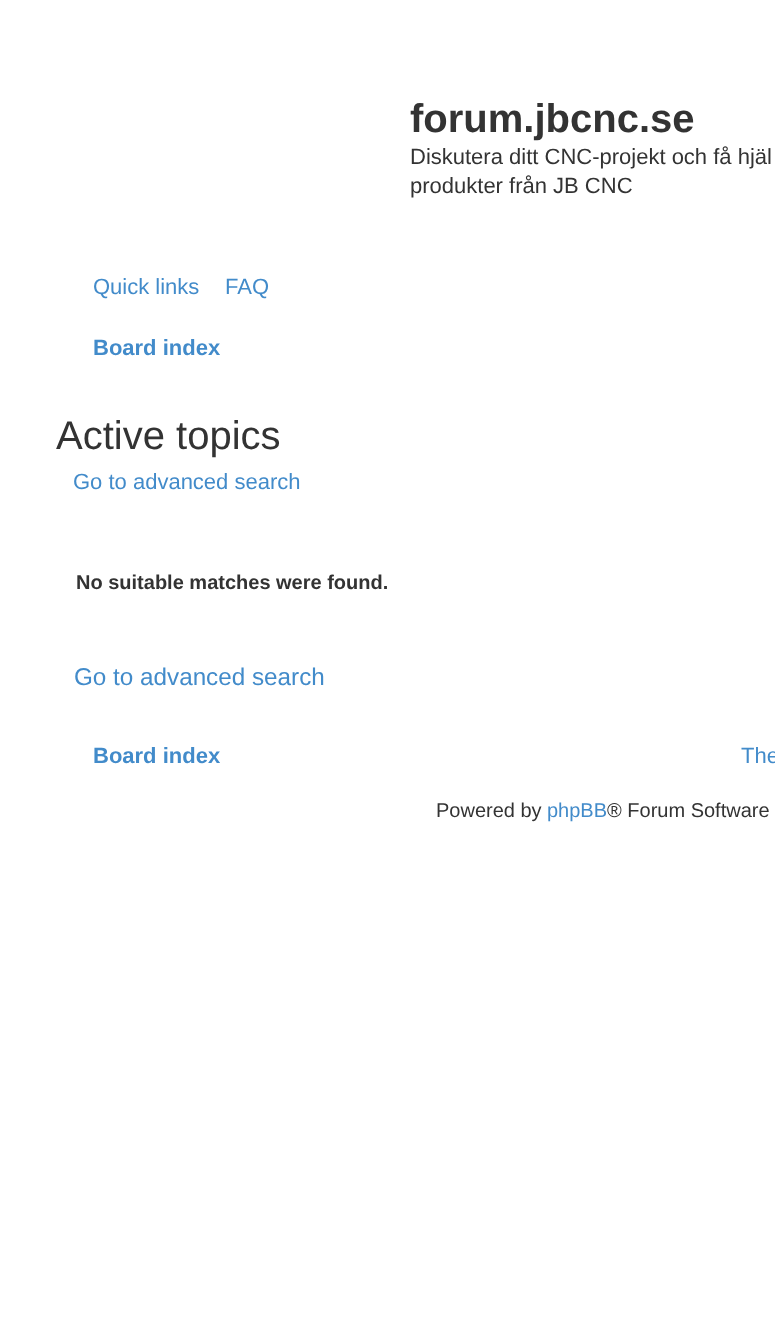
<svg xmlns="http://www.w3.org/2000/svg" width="775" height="1323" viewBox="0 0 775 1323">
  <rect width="100%" height="100%" fill="#fff"/>
  <text x="410" y="132" font-family="Liberation Sans" font-size="40" font-weight="bold" fill="#333">forum.jbcnc.se</text>
  <g font-family="Liberation Sans" font-size="22" fill="#333">
    <text x="410" y="164">Diskutera ditt CNC-projekt och få hjäl</text>
    <text x="410" y="193">produkter från JB CNC</text>
  </g>
  <g font-family="Liberation Sans" font-size="22" fill="#428bca">
    <text x="93" y="294">Quick links</text>
    <text x="225" y="294">FAQ</text>
  </g>
  <text x="93" y="355" font-family="Liberation Sans" font-size="22" font-weight="bold" fill="#428bca">Board index</text>
  <text x="56" y="449" font-family="Liberation Sans" font-size="40" fill="#333">Active topics</text>
  <text x="73" y="489" font-family="Liberation Sans" font-size="22" fill="#428bca">Go to advanced search</text>
  <text x="76" y="589" font-family="Liberation Sans" font-size="20" font-weight="bold" fill="#333">No suitable matches were found.</text>
  <text x="74" y="685" font-family="Liberation Sans" font-size="24.25" fill="#428bca">Go to advanced search</text>
  <text x="93" y="763" font-family="Liberation Sans" font-size="22" font-weight="bold" fill="#428bca">Board index</text>
  <text x="741" y="763" font-family="Liberation Sans" font-size="22" fill="#428bca">The</text>
  <text x="436" y="817" font-family="Liberation Sans" font-size="20" fill="#333">Powered by</text>
  <text x="547" y="817" font-family="Liberation Sans" font-size="20" fill="#428bca">phpBB</text>
  <text x="607" y="817" font-family="Liberation Sans" font-size="20" fill="#333">® Forum Software</text>
</svg>
